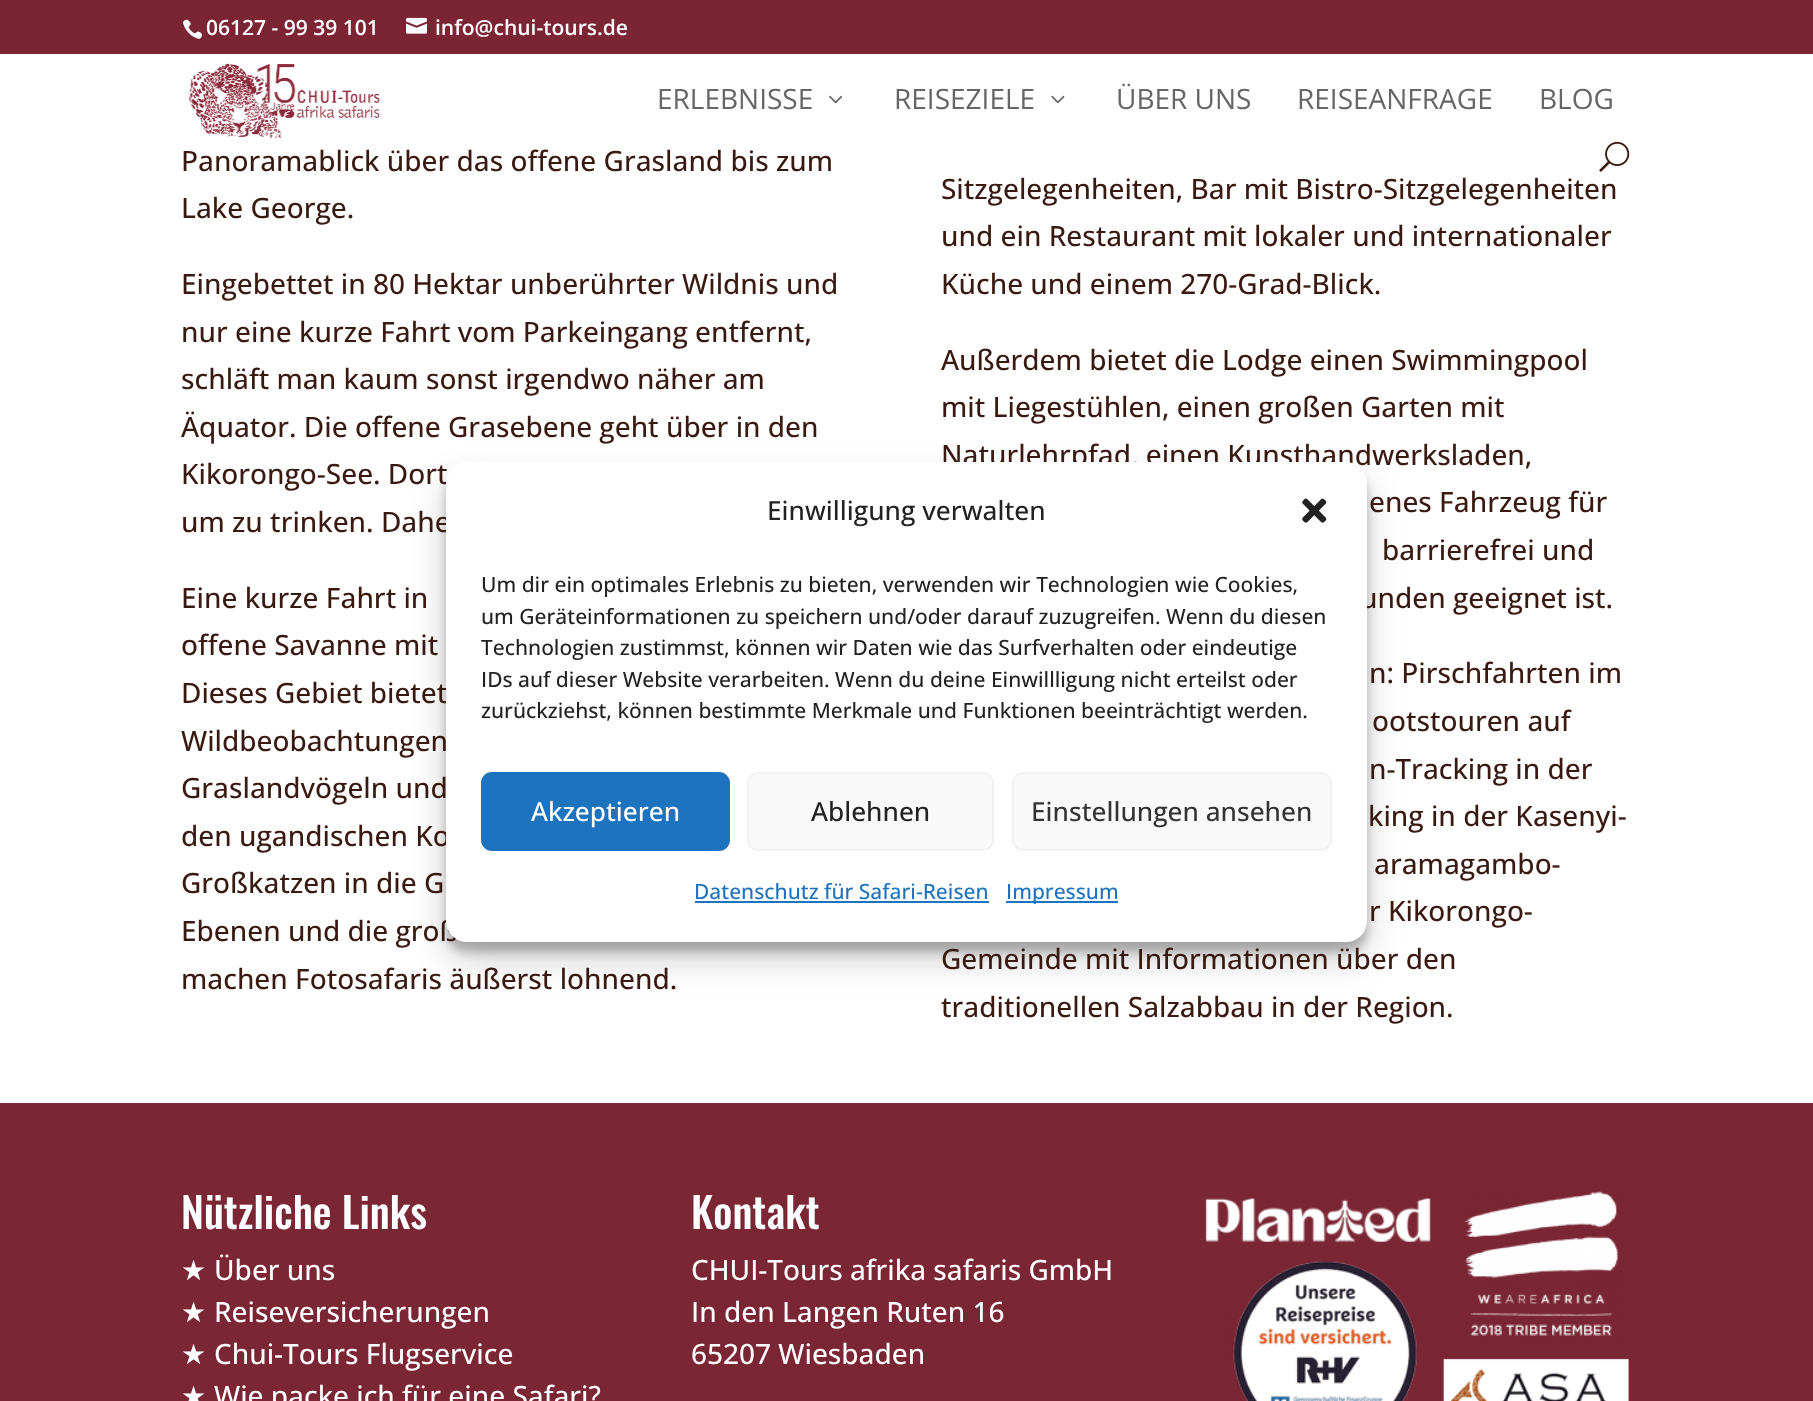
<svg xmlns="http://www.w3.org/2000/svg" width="1813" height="1401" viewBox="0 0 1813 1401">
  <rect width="100%" height="100%" fill="#fff"/>
  <path d="M0 0h1813v54H0z" fill="#7b2534"/>
  <image x="182" y="19" width="21" height="20" href="img/1.png"/>
  <image x="406" y="17" width="21" height="17" href="img/2.png"/>
  <image x="188" y="63" width="192" height="75" href="img/3.png"/>
  <image x="829" y="95" width="14" height="9" href="img/4.png"/>
  <image x="1051" y="95" width="14" height="9" href="img/5.png"/>
  <image x="1599" y="141" width="31" height="31" href="img/6.png"/>
  <path d="M0 1103h1813v298H0z" fill="#7a2635"/>
  <image x="1205" y="1191" width="424" height="210" href="img/7.png"/>
  <rect x="446" y="473" width="921" height="479" rx="21" fill="#0000003b" filter="blur(5px)"/>
  <rect x="446" y="480" width="921" height="479" rx="21" fill="#00000030" filter="blur(17.5px)"/>
  <g font-family="Open Sans" font-size="21" font-weight="600" fill="#fff">
    <text x="206" y="35">06127 - 99 39 101</text>
    <text x="435" y="35">info@chui-tours.de</text>
  </g>
  <g font-family="Open Sans" font-size="28" fill="#666">
    <text x="657" y="109">ERLEBNISSE</text>
    <text x="894" y="109">REISEZIELE</text>
    <text x="1116" y="109">ÜBER UNS</text>
    <text x="1297" y="109">REISEANFRAGE</text>
    <text x="1539" y="109">BLOG</text>
  </g>
  <g font-family="Open Sans" font-size="28" font-weight="500" fill="#391a12">
    <text x="181" y="171">Panoramablick über das offene Grasland bis zum</text>
    <text x="181" y="218">Lake George.</text>
    <text x="941" y="199">Sitzgelegenheiten, Bar mit Bistro-Sitzgelegenheiten</text>
    <text x="941" y="246">und ein Restaurant mit lokaler und internationaler</text>
    <text x="941" y="294">Küche und einem 270-Grad-Blick.</text>
    <text x="181" y="294">Eingebettet in 80 Hektar unberührter Wildnis und</text>
    <text x="181" y="342">nur eine kurze Fahrt vom Parkeingang entfernt,</text>
    <text x="181" y="389">schläft man kaum sonst irgendwo näher am</text>
    <text x="181" y="437">Äquator. Die offene Grasebene geht über in den</text>
    <text x="181" y="484">Kikorongo-See. Dort</text>
    <text x="181" y="532">um zu trinken. Dahe</text>
    <text x="941" y="370">Außerdem bietet die Lodge einen Swimmingpool</text>
    <text x="941" y="417">mit Liegestühlen, einen großen Garten mit</text>
    <text x="941" y="465">Naturlehrpfad, einen Kunsthandwerksladen,</text>
    <text x="1369" y="512">enes Fahrzeug für</text>
    <text x="1382" y="560">barrierefrei und</text>
    <text x="1360" y="608">unden geeignet ist.</text>
    <text x="181" y="608">Eine kurze Fahrt in</text>
    <text x="181" y="655">offene Savanne mit</text>
    <text x="181" y="703">Dieses Gebiet bietet</text>
    <text x="181" y="751">Wildbeobachtungen</text>
    <text x="181" y="798">Graslandvögeln und</text>
    <text x="181" y="846">den ugandischen Ko</text>
    <text x="181" y="893">Großkatzen in die G</text>
    <text x="181" y="941">Ebenen und die groß</text>
    <text x="181" y="989">machen Fotosafaris äußerst lohnend.</text>
    <text x="1369" y="683">n: Pirschfahrten im</text>
    <text x="1372" y="731">ootstouren auf</text>
    <text x="1369" y="779">n-Tracking in der</text>
    <text x="1368" y="826">king in der Kasenyi-</text>
    <text x="1374" y="874">aramagambo-</text>
    <text x="1369" y="921">r Kikorongo-</text>
    <text x="941" y="969">Gemeinde mit Informationen über den</text>
    <text x="941" y="1017">traditionellen Salzabbau in der Region.</text>
  </g>
  <text x="181" y="1229" font-family="Oswald" font-size="42" font-weight="500" fill="#fff">Nützliche Links</text>
  <text x="181" y="1280" font-family="DejaVu Sans" font-size="28" fill="#fff">★</text>
  <text x="214" y="1280" font-family="Open Sans" font-size="28" font-weight="500" fill="#fff">Über uns</text>
  <text x="181" y="1322" font-family="DejaVu Sans" font-size="28" fill="#fff">★</text>
  <text x="214" y="1322" font-family="Open Sans" font-size="28" font-weight="500" fill="#fff">Reiseversicherungen</text>
  <text x="181" y="1364" font-family="DejaVu Sans" font-size="28" fill="#fff">★</text>
  <text x="214" y="1364" font-family="Open Sans" font-size="28" font-weight="500" fill="#fff">Chui-Tours Flugservice</text>
  <text x="181" y="1406" font-family="DejaVu Sans" font-size="28" fill="#fff">★</text>
  <text x="214" y="1406" font-family="Open Sans" font-size="28" font-weight="500" fill="#fff">Wie packe ich für eine Safari?</text>
  <text x="691" y="1229" font-family="Oswald" font-size="42" font-weight="500" fill="#fff">Kontakt</text>
  <g font-family="Open Sans" font-size="28" font-weight="500" fill="#fff">
    <text x="691" y="1280">CHUI-Tours afrika safaris GmbH</text>
    <text x="691" y="1322">In den Langen Ruten 16</text>
    <text x="691" y="1364">65207 Wiesbaden</text>
  </g>
  <rect x="446" y="462" width="921" height="480" rx="21" fill="#fff"/>
  <text x="767" y="520" font-family="Open Sans" font-size="26.25" font-weight="500" fill="#222">Einwilligung verwalten</text>
  <image x="1302" y="498" width="25" height="25" href="img/8.png"/>
  <g font-family="Open Sans" font-size="21" font-weight="500" fill="#222">
    <text x="481" y="592">Um dir ein optimales Erlebnis zu bieten, verwenden wir Technologien wie Cookies,</text>
    <text x="481" y="624">um Geräteinformationen zu speichern und/oder darauf zuzugreifen. Wenn du diesen</text>
    <text x="481" y="655">Technologien zustimmst, können wir Daten wie das Surfverhalten oder eindeutige</text>
    <text x="481" y="687">IDs auf dieser Website verarbeiten. Wenn du deine Einwillligung nicht erteilst oder</text>
    <text x="481" y="718">zurückziehst, können bestimmte Merkmale und Funktionen beeinträchtigt werden.</text>
  </g>
  <rect x="482" y="773" width="247" height="77" rx="10" fill="#1e73be" stroke="#1e73be" stroke-width="2"/>
  <text x="531" y="821" font-family="Open Sans" font-size="26.25" font-weight="500" fill="#fff">Akzeptieren</text>
  <rect x="748" y="773" width="245" height="77" rx="10" fill="#f9f9f9" stroke="#f2f2f2" stroke-width="2"/>
  <text x="811" y="821" font-family="Open Sans" font-size="26.25" font-weight="500" fill="#222">Ablehnen</text>
  <rect x="1013" y="773" width="318" height="77" rx="10" fill="#f9f9f9" stroke="#f2f2f2" stroke-width="2"/>
  <text x="1031" y="821" font-family="Open Sans" font-size="26.25" font-weight="500" fill="#333">Einstellungen ansehen</text>
  <text x="694" y="899" font-family="Open Sans" font-size="21" font-weight="500" fill="#1e73be">Datenschutz für Safari-Reisen</text>
  <path d="M695 901h294v2H695z" fill="#1e73be"/>
  <path d="M1006 901h112v2H1006z" fill="#1e73be"/>
  <text x="1006" y="899" font-family="Open Sans" font-size="21" font-weight="500" fill="#1e73be">Impressum</text>
</svg>
